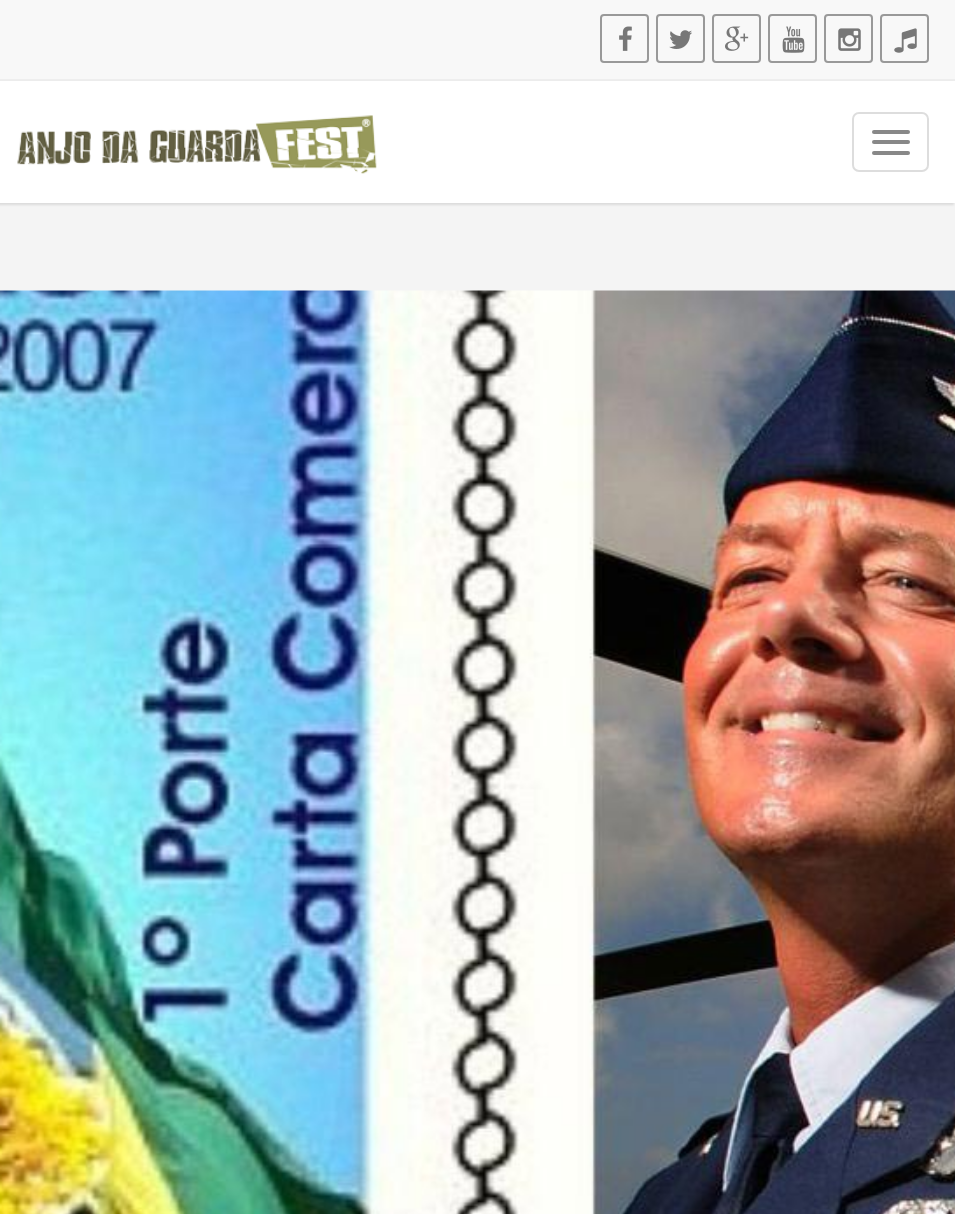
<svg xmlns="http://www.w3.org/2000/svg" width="955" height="1214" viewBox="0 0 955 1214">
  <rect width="100%" height="100%" fill="#f4f4f4"/>
  <path d="M0 0h955v79H0z" fill="#f8f8f8"/>
  <path d="M0 79h955v2H0z" fill="#eee"/>
  <rect x="601" y="15" width="47" height="47" rx="3" fill="none" stroke="#999" stroke-width="2"/>
  <image x="619" y="26" width="13" height="25" href="img/1.png"/>
  <rect x="657" y="15" width="47" height="47" rx="3" fill="none" stroke="#999" stroke-width="2"/>
  <image x="669" y="30" width="23" height="19" href="img/2.png"/>
  <rect x="713" y="15" width="47" height="47" rx="3" fill="none" stroke="#999" stroke-width="2"/>
  <image x="725" y="26" width="24" height="25" href="img/3.png"/>
  <rect x="769" y="15" width="47" height="47" rx="3" fill="none" stroke="#999" stroke-width="2"/>
  <image x="782" y="26" width="23" height="27" href="img/4.png"/>
  <rect x="825" y="15" width="47" height="47" rx="3" fill="none" stroke="#999" stroke-width="2"/>
  <image x="838" y="28" width="23" height="23" href="img/5.png"/>
  <rect x="881" y="15" width="47" height="47" rx="3" fill="none" stroke="#999" stroke-width="2"/>
  <image x="894" y="28" width="23" height="25" href="img/6.png"/>
  <path d="M-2 82h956v123H-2z" fill="#0000001a" filter="blur(1px)"/>
  <path d="M0 81h955v122H0z" fill="#fff"/>
  <image x="17" y="115" width="360" height="59" href="img/7.png"/>
  <rect x="853" y="113" width="75" height="58" rx="6" fill="none" stroke="#ddd" stroke-width="2"/>
  <rect x="872" y="130" width="38" height="4" rx="2" fill="#888"/>
  <rect x="872" y="140" width="38" height="4" rx="2" fill="#888"/>
  <rect x="872" y="151" width="38" height="4" rx="2" fill="#888"/>
  <image x="0" y="290" width="955" height="924" href="img/8.png"/>
</svg>
